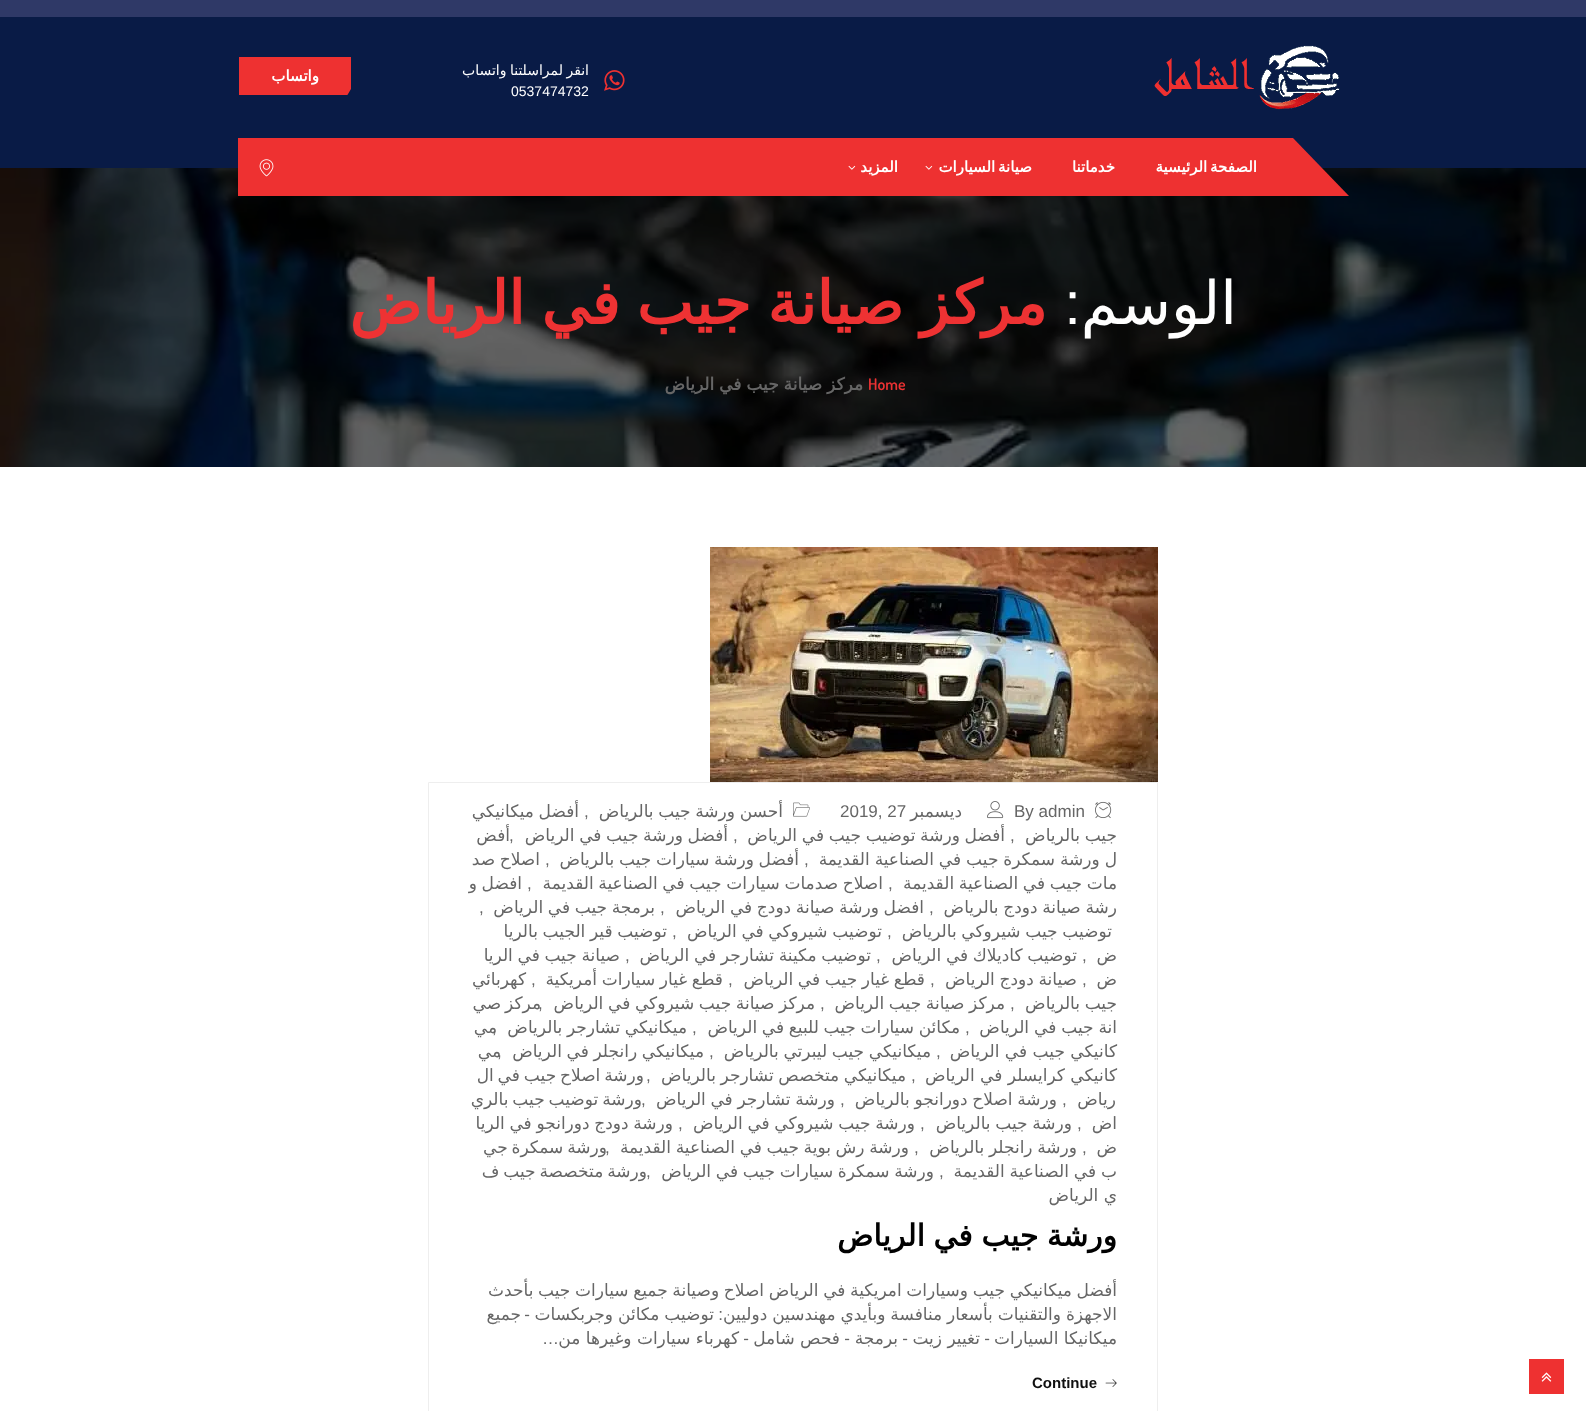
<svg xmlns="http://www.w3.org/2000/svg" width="1586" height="1411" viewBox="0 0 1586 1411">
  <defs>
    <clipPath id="clip1"><path d="M239 57h112v38H239z"/></clipPath>
  </defs>
  <rect width="100%" height="100%" fill="#fff"/>
  <path d="M0 0h1586v17H0z" fill="#2f3967"/>
  <path d="M0 17h1586v151H0z" fill="#091b46"/>
  <image x="1154" y="45" width="186" height="65" href="img/1.png"/>
  <image x="604" y="70" width="21" height="21" href="img/2.png"/>
  <g clip-path="url(#clip1)">
    <path d="M239 48V104H342L351 89V48Z" fill="#ee3131" fill-rule="evenodd"/>
  </g>
  <image x="0" y="168" width="1586" height="299" href="img/5.png"/>
  <path d="M238 138h1055v58H238z" fill="#ee3131"/>
  <path d="M1293 196V138L1349 196Z" fill="#ee3131"/>
  <image x="925" y="165" width="8" height="5" href="img/3.png"/>
  <image x="848" y="165" width="8" height="5" href="img/3.png"/>
  <image x="259" y="159" width="15" height="18" href="img/4.png"/>
  <path d="M1529 1359h35v35H1529z" fill="#ee3131"/>
  <image x="1541" y="1372" width="11" height="10" href="img/6.png"/>
  <image x="710" y="547" width="448" height="235" href="img/7.png"/>
  <path d="M428.5 782.5h729v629H428.5z" fill="none" stroke="#eee"/>
  <image x="1095" y="801" width="17" height="18" href="img/8.png"/>
  <image x="987" y="801" width="17" height="18" href="img/9.png"/>
  <image x="793" y="802" width="17" height="15" href="img/10.png"/>
  <image x="1105" y="1379" width="12" height="8" href="img/11.png"/>
  <text x="589" y="75" word-spacing="-1" font-family="DejaVu Sans" font-size="14" direction="rtl" fill="#fff">انقر لمراسلتنا واتساب</text>
  <text x="511" y="96" font-family="Liberation Sans" font-size="14" fill="#fff">0537474732</text>
  <g font-family="DejaVu Sans" font-size="15" font-weight="bold" direction="rtl" fill="#fff">
    <text x="319" y="81">واتساب</text>
    <text x="1257" y="172" word-spacing="-2">الصفحة الرئيسية</text>
    <text x="1115" y="172">خدماتنا</text>
    <text x="1032" y="172" word-spacing="-2">صيانة السيارات</text>
    <text x="898" y="172">المزيد</text>
  </g>
  <text x="1237" y="324" font-family="DejaVu Sans" font-size="60" direction="rtl" fill="#fff">الوسم</text>
  <text x="1081" y="324" font-family="Liberation Sans" font-size="60" direction="rtl" fill="#fff">:</text>
  <text x="1047" y="324" word-spacing="-2.5" font-family="DejaVu Sans" font-size="60" font-weight="bold" direction="rtl" fill="#ee3233">مركز صيانة جيب في الرياض</text>
  <text x="868" y="390" font-family="Dosis" font-size="16" font-weight="600" fill="#ee3233">Home</text>
  <text x="863" y="390" word-spacing="-0.5" font-family="DejaVu Sans" font-size="17" font-weight="bold" direction="rtl" fill="#666">مركز صيانة جيب في الرياض</text>
  <text x="1014" y="817" font-family="Liberation Sans" font-size="17" fill="#666">By admin</text>
  <text x="962" y="817" font-family="DejaVu Sans" font-size="17" direction="rtl" fill="#666">ديسمبر</text>
  <text x="840" y="817" font-family="Liberation Sans" font-size="17" fill="#666">2019, 27</text>
  <text x="783" y="817" word-spacing="-0.75" font-family="DejaVu Sans" font-size="17" direction="rtl" fill="#666">أحسن ورشة جيب بالرياض</text>
  <text x="584" y="817" font-family="Liberation Sans" font-size="17" fill="#666">,</text>
  <g font-family="DejaVu Sans" font-size="17" direction="rtl" fill="#666">
    <text x="579" y="817" word-spacing="-0.75">أفضل ميكانيكي</text>
    <text x="1117" y="841" word-spacing="-0.75">جيب بالرياض</text>
  </g>
  <text x="1010" y="841" font-family="Liberation Sans" font-size="17" fill="#666">,</text>
  <text x="1005" y="841" word-spacing="-0.75" font-family="DejaVu Sans" font-size="17" direction="rtl" fill="#666">أفضل ورشة توضيب جيب في الرياض</text>
  <text x="733" y="841" font-family="Liberation Sans" font-size="17" fill="#666">,</text>
  <text x="728" y="841" word-spacing="-0.75" font-family="DejaVu Sans" font-size="17" direction="rtl" fill="#666">أفضل ورشة جيب في الرياض</text>
  <text x="509" y="841" font-family="Liberation Sans" font-size="17" fill="#666">,</text>
  <g font-family="DejaVu Sans" font-size="17" direction="rtl" fill="#666">
    <text x="510" y="841">أفض</text>
    <text x="1117" y="865" word-spacing="-0.5">ل ورشة سمكرة جيب في الصناعية القديمة</text>
  </g>
  <text x="804" y="865" font-family="Liberation Sans" font-size="17" fill="#666">,</text>
  <text x="799" y="865" word-spacing="-0.75" font-family="DejaVu Sans" font-size="17" direction="rtl" fill="#666">أفضل ورشة سيارات جيب بالرياض</text>
  <text x="545" y="865" font-family="Liberation Sans" font-size="17" fill="#666">,</text>
  <g font-family="DejaVu Sans" font-size="17" direction="rtl" fill="#666">
    <text x="540" y="865" word-spacing="-0.75">اصلاح صد</text>
    <text x="1117" y="889" word-spacing="-0.75">مات جيب في الصناعية القديمة</text>
  </g>
  <text x="888" y="889" font-family="Liberation Sans" font-size="17" fill="#666">,</text>
  <text x="883" y="889" word-spacing="-0.75" font-family="DejaVu Sans" font-size="17" direction="rtl" fill="#666">اصلاح صدمات سيارات جيب في الصناعية القديمة</text>
  <text x="527" y="889" font-family="Liberation Sans" font-size="17" fill="#666">,</text>
  <g font-family="DejaVu Sans" font-size="17" direction="rtl" fill="#666">
    <text x="522" y="889" word-spacing="-0.75">افضل و</text>
    <text x="1117" y="913" word-spacing="-0.75">رشة صيانة دودج بالرياض</text>
  </g>
  <text x="929" y="913" font-family="Liberation Sans" font-size="17" fill="#666">,</text>
  <text x="924" y="913" word-spacing="-0.75" font-family="DejaVu Sans" font-size="17" direction="rtl" fill="#666">افضل ورشة صيانة دودج في الرياض</text>
  <text x="660" y="913" font-family="Liberation Sans" font-size="17" fill="#666">,</text>
  <text x="655" y="913" word-spacing="-0.75" font-family="DejaVu Sans" font-size="17" direction="rtl" fill="#666">برمجة جيب في الرياض</text>
  <text x="479" y="913" font-family="Liberation Sans" font-size="17" fill="#666">,</text>
  <text x="1112" y="937" word-spacing="-0.75" font-family="DejaVu Sans" font-size="17" direction="rtl" fill="#666">توضيب جيب شيروكي بالرياض</text>
  <text x="887" y="937" font-family="Liberation Sans" font-size="17" fill="#666">,</text>
  <text x="882" y="937" word-spacing="-0.75" font-family="DejaVu Sans" font-size="17" direction="rtl" fill="#666">توضيب شيروكي في الرياض</text>
  <text x="672" y="937" font-family="Liberation Sans" font-size="17" fill="#666">,</text>
  <g font-family="DejaVu Sans" font-size="17" direction="rtl" fill="#666">
    <text x="667" y="937" word-spacing="-0.75">توضيب قير الجيب بالريا</text>
    <text x="1117" y="961">ض</text>
  </g>
  <text x="1082" y="961" font-family="Liberation Sans" font-size="17" fill="#666">,</text>
  <text x="1077" y="961" word-spacing="-0.75" font-family="DejaVu Sans" font-size="17" direction="rtl" fill="#666">توضيب كاديلاك في الرياض</text>
  <text x="876" y="961" font-family="Liberation Sans" font-size="17" fill="#666">,</text>
  <text x="871" y="961" word-spacing="-0.75" font-family="DejaVu Sans" font-size="17" direction="rtl" fill="#666">توضيب مكينة تشارجر في الرياض</text>
  <text x="625" y="961" font-family="Liberation Sans" font-size="17" fill="#666">,</text>
  <g font-family="DejaVu Sans" font-size="17" direction="rtl" fill="#666">
    <text x="620" y="961" word-spacing="-0.75">صيانة جيب في الريا</text>
    <text x="1117" y="985">ض</text>
  </g>
  <text x="1082" y="985" font-family="Liberation Sans" font-size="17" fill="#666">,</text>
  <text x="1077" y="985" word-spacing="-0.75" font-family="DejaVu Sans" font-size="17" direction="rtl" fill="#666">صيانة دودج الرياض</text>
  <text x="930" y="985" font-family="Liberation Sans" font-size="17" fill="#666">,</text>
  <text x="925" y="985" word-spacing="-0.75" font-family="DejaVu Sans" font-size="17" direction="rtl" fill="#666">قطع غيار جيب في الرياض</text>
  <text x="728" y="985" font-family="Liberation Sans" font-size="17" fill="#666">,</text>
  <text x="723" y="985" word-spacing="-0.75" font-family="DejaVu Sans" font-size="17" direction="rtl" fill="#666">قطع غيار سيارات أمريكية</text>
  <text x="531" y="985" font-family="Liberation Sans" font-size="17" fill="#666">,</text>
  <g font-family="DejaVu Sans" font-size="17" direction="rtl" fill="#666">
    <text x="526" y="985">كهربائي</text>
    <text x="1117" y="1009" word-spacing="-0.75">جيب بالرياض</text>
    <text x="1005" y="1009" word-spacing="-0.75">مركز صيانة جيب الرياض</text>
    <text x="815" y="1009" word-spacing="-0.75">مركز صيانة جيب شيروكي في الرياض</text>
  </g>
  <g font-family="Liberation Sans" font-size="17" fill="#666">
    <text x="1010" y="1009">,</text>
    <text x="820" y="1009">,</text>
    <text x="538" y="1009">,</text>
  </g>
  <g font-family="DejaVu Sans" font-size="17" direction="rtl" fill="#666">
    <text x="541" y="1009" word-spacing="-1.5">مركز صي</text>
    <text x="1117" y="1033" word-spacing="-0.5">انة جيب في الرياض</text>
    <text x="960" y="1033" word-spacing="-0.75">مكائن سيارات جيب للبيع في الرياض</text>
    <text x="687" y="1033" word-spacing="-0.75">ميكانيكي تشارجر بالرياض</text>
  </g>
  <g font-family="Liberation Sans" font-size="17" fill="#666">
    <text x="965" y="1033">,</text>
    <text x="692" y="1033">,</text>
    <text x="492" y="1033">,</text>
  </g>
  <g font-family="DejaVu Sans" font-size="17" direction="rtl" fill="#666">
    <text x="497" y="1033">مي</text>
    <text x="1117" y="1057">كانيكي جيب في الرياض</text>
    <text x="931" y="1057" word-spacing="-0.75">ميكانيكي جيب ليبرتي بالرياض</text>
    <text x="704" y="1057" word-spacing="-0.75">ميكانيكي رانجلر في الرياض</text>
  </g>
  <g font-family="Liberation Sans" font-size="17" fill="#666">
    <text x="936" y="1057">,</text>
    <text x="709" y="1057">,</text>
    <text x="497" y="1057">,</text>
  </g>
  <g font-family="DejaVu Sans" font-size="17" direction="rtl" fill="#666">
    <text x="501" y="1057">مي</text>
    <text x="1117" y="1081">كانيكي كرايسلر في الرياض</text>
    <text x="906" y="1081" word-spacing="-0.75">ميكانيكي متخصص تشارجر بالرياض</text>
  </g>
  <g font-family="Liberation Sans" font-size="17" fill="#666">
    <text x="911" y="1081">,</text>
    <text x="646" y="1081">,</text>
  </g>
  <g font-family="DejaVu Sans" font-size="17" direction="rtl" fill="#666">
    <text x="644" y="1081" word-spacing="-1.5">ورشة اصلاح جيب في ال</text>
    <text x="1116" y="1105">رياض</text>
    <text x="1057" y="1105" word-spacing="-0.75">ورشة اصلاح دورانجو بالرياض</text>
    <text x="835" y="1105" word-spacing="-0.75">ورشة تشارجر في الرياض</text>
  </g>
  <g font-family="Liberation Sans" font-size="17" fill="#666">
    <text x="1062" y="1105">,</text>
    <text x="840" y="1105">,</text>
    <text x="641" y="1105">,</text>
  </g>
  <g font-family="DejaVu Sans" font-size="17" direction="rtl" fill="#666">
    <text x="642" y="1105" word-spacing="-1.5">ورشة توضيب جيب بالري</text>
    <text x="1117" y="1129">اض</text>
  </g>
  <text x="1077" y="1129" font-family="Liberation Sans" font-size="17" fill="#666">,</text>
  <text x="1072" y="1129" word-spacing="-0.75" font-family="DejaVu Sans" font-size="17" direction="rtl" fill="#666">ورشة جيب بالرياض</text>
  <text x="920" y="1129" font-family="Liberation Sans" font-size="17" fill="#666">,</text>
  <text x="915" y="1129" word-spacing="-0.75" font-family="DejaVu Sans" font-size="17" direction="rtl" fill="#666">ورشة جيب شيروكي في الرياض</text>
  <text x="678" y="1129" font-family="Liberation Sans" font-size="17" fill="#666">,</text>
  <g font-family="DejaVu Sans" font-size="17" direction="rtl" fill="#666">
    <text x="673" y="1129" word-spacing="-0.75">ورشة دودج دورانجو في الريا</text>
    <text x="1117" y="1153">ض</text>
    <text x="1077" y="1153" word-spacing="-0.75">ورشة رانجلر بالرياض</text>
    <text x="909" y="1153" word-spacing="-0.75">ورشة رش بوية جيب في الصناعية القديمة</text>
  </g>
  <g font-family="Liberation Sans" font-size="17" fill="#666">
    <text x="1082" y="1153">,</text>
    <text x="914" y="1153">,</text>
    <text x="605" y="1153">,</text>
  </g>
  <g font-family="DejaVu Sans" font-size="17" direction="rtl" fill="#666">
    <text x="607" y="1153" word-spacing="-1.5">ورشة سمكرة جي</text>
    <text x="1117" y="1177" word-spacing="-0.5">ب في الصناعية القديمة</text>
    <text x="934" y="1177" word-spacing="-0.75">ورشة سمكرة سيارات جيب في الرياض</text>
  </g>
  <g font-family="Liberation Sans" font-size="17" fill="#666">
    <text x="939" y="1177">,</text>
    <text x="646" y="1177">,</text>
  </g>
  <g font-family="DejaVu Sans" font-size="17" direction="rtl" fill="#666">
    <text x="647" y="1177" word-spacing="-1.5">ورشة متخصصة جيب ف</text>
    <text x="1117" y="1201">ي الرياض</text>
  </g>
  <text x="1117" y="1246" word-spacing="-1" font-family="DejaVu Sans" font-size="30" font-weight="bold" direction="rtl" fill="#010101">ورشة جيب في الرياض</text>
  <g font-family="DejaVu Sans" font-size="17" direction="rtl" fill="#666">
    <text x="1117" y="1296" word-spacing="-0.75">أفضل ميكانيكي جيب وسيارات امريكية في الرياض اصلاح وصيانة جميع سيارات جيب بأحدث</text>
    <text x="1117" y="1320" word-spacing="-0.5">الاجهزة والتقنيات بأسعار منافسة وبأيدي مهندسين دوليين</text>
  </g>
  <text x="723" y="1320" font-family="Liberation Sans" font-size="17" direction="rtl" fill="#666">:</text>
  <text x="714" y="1320" word-spacing="-0.5" font-family="DejaVu Sans" font-size="17" direction="rtl" fill="#666">توضيب مكائن وجربكسات</text>
  <text x="530" y="1320" font-family="Liberation Sans" font-size="17" direction="rtl" fill="#666">-</text>
  <g font-family="DejaVu Sans" font-size="17" direction="rtl" fill="#666">
    <text x="521" y="1320">جميع</text>
    <text x="1117" y="1344">ميكانيكا السيارات</text>
  </g>
  <text x="990" y="1344" font-family="Liberation Sans" font-size="17" direction="rtl" fill="#666">-</text>
  <text x="980" y="1344" font-family="DejaVu Sans" font-size="17" direction="rtl" fill="#666">تغيير زيت</text>
  <text x="908" y="1344" font-family="Liberation Sans" font-size="17" direction="rtl" fill="#666">-</text>
  <text x="898" y="1344" font-family="DejaVu Sans" font-size="17" direction="rtl" fill="#666">برمجة</text>
  <text x="850" y="1344" font-family="Liberation Sans" font-size="17" direction="rtl" fill="#666">-</text>
  <text x="840" y="1344" font-family="DejaVu Sans" font-size="17" direction="rtl" fill="#666">فحص شامل</text>
  <text x="749" y="1344" font-family="Liberation Sans" font-size="17" direction="rtl" fill="#666">-</text>
  <text x="739" y="1344" font-family="DejaVu Sans" font-size="17" direction="rtl" fill="#666">كهرباء سيارات وغيرها من</text>
  <text x="559" y="1344" font-family="Liberation Sans" font-size="17" direction="rtl" fill="#666">…</text>
  <text x="1032" y="1388" font-family="Liberation Sans" font-size="15" font-weight="bold" fill="#101010">Continue</text>
</svg>
